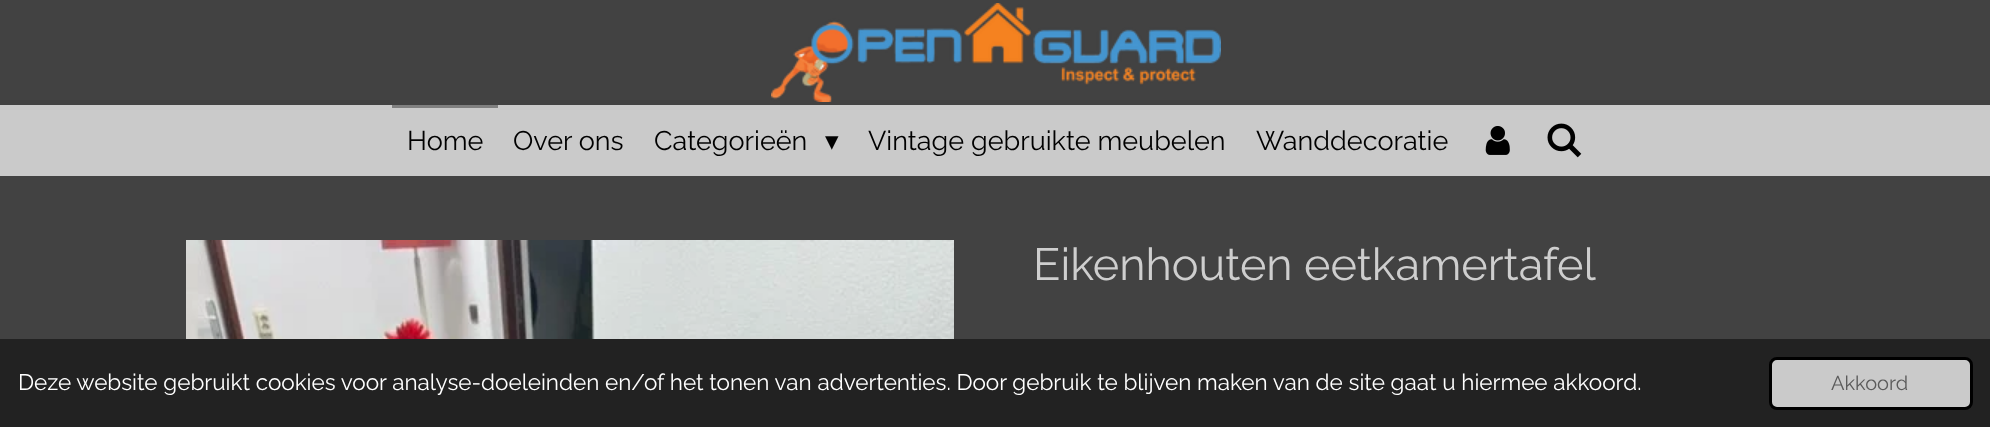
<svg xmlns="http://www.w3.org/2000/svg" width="1990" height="427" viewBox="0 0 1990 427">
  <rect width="100%" height="100%" fill="#424242"/>
  <image x="771" y="3" width="450" height="99" href="img/1.png"/>
  <path d="M0 105h1990v71H0z" fill="#cacaca"/>
  <path d="M392 105h106v3H392z" fill="#808080"/>
  <image x="1485" y="126" width="25" height="29" href="img/2.png"/>
  <image x="1547" y="123" width="35" height="35" href="img/3.png"/>
  <image x="186" y="240" width="768" height="99" href="img/4.png"/>
  <path d="M0 339h1990v88H0z" fill="#222"/>
  <rect x="1770.5" y="358.5" width="201" height="50" rx="6.5" fill="#cacaca" stroke="#000" stroke-width="3"/>
  <g font-family="Raleway" font-size="27" fill="#000">
    <text x="407" y="150">Home</text>
    <text x="513" y="150">Over ons</text>
    <text x="654" y="150">Categorieën</text>
  </g>
  <text x="825" y="150" font-family="DejaVu Sans" font-size="27" fill="#000">▾</text>
  <g font-family="Raleway" font-size="27" fill="#000">
    <text x="868" y="150">Vintage gebruikte meubelen</text>
    <text x="1256" y="150">Wanddecoratie</text>
  </g>
  <text x="1033" y="280" font-family="Raleway" font-size="45" fill="#cecece">Eikenhouten eetkamertafel</text>
  <text x="18" y="390" font-family="Raleway" font-size="22.5" fill="#fff">Deze website gebruikt cookies voor analyse-doeleinden en/of het tonen van advertenties. Door gebruik te blijven maken van de site gaat u hiermee akkoord.</text>
  <text x="1831" y="390" font-family="Raleway" font-size="20" fill="#5b5b5b">Akkoord</text>
</svg>
